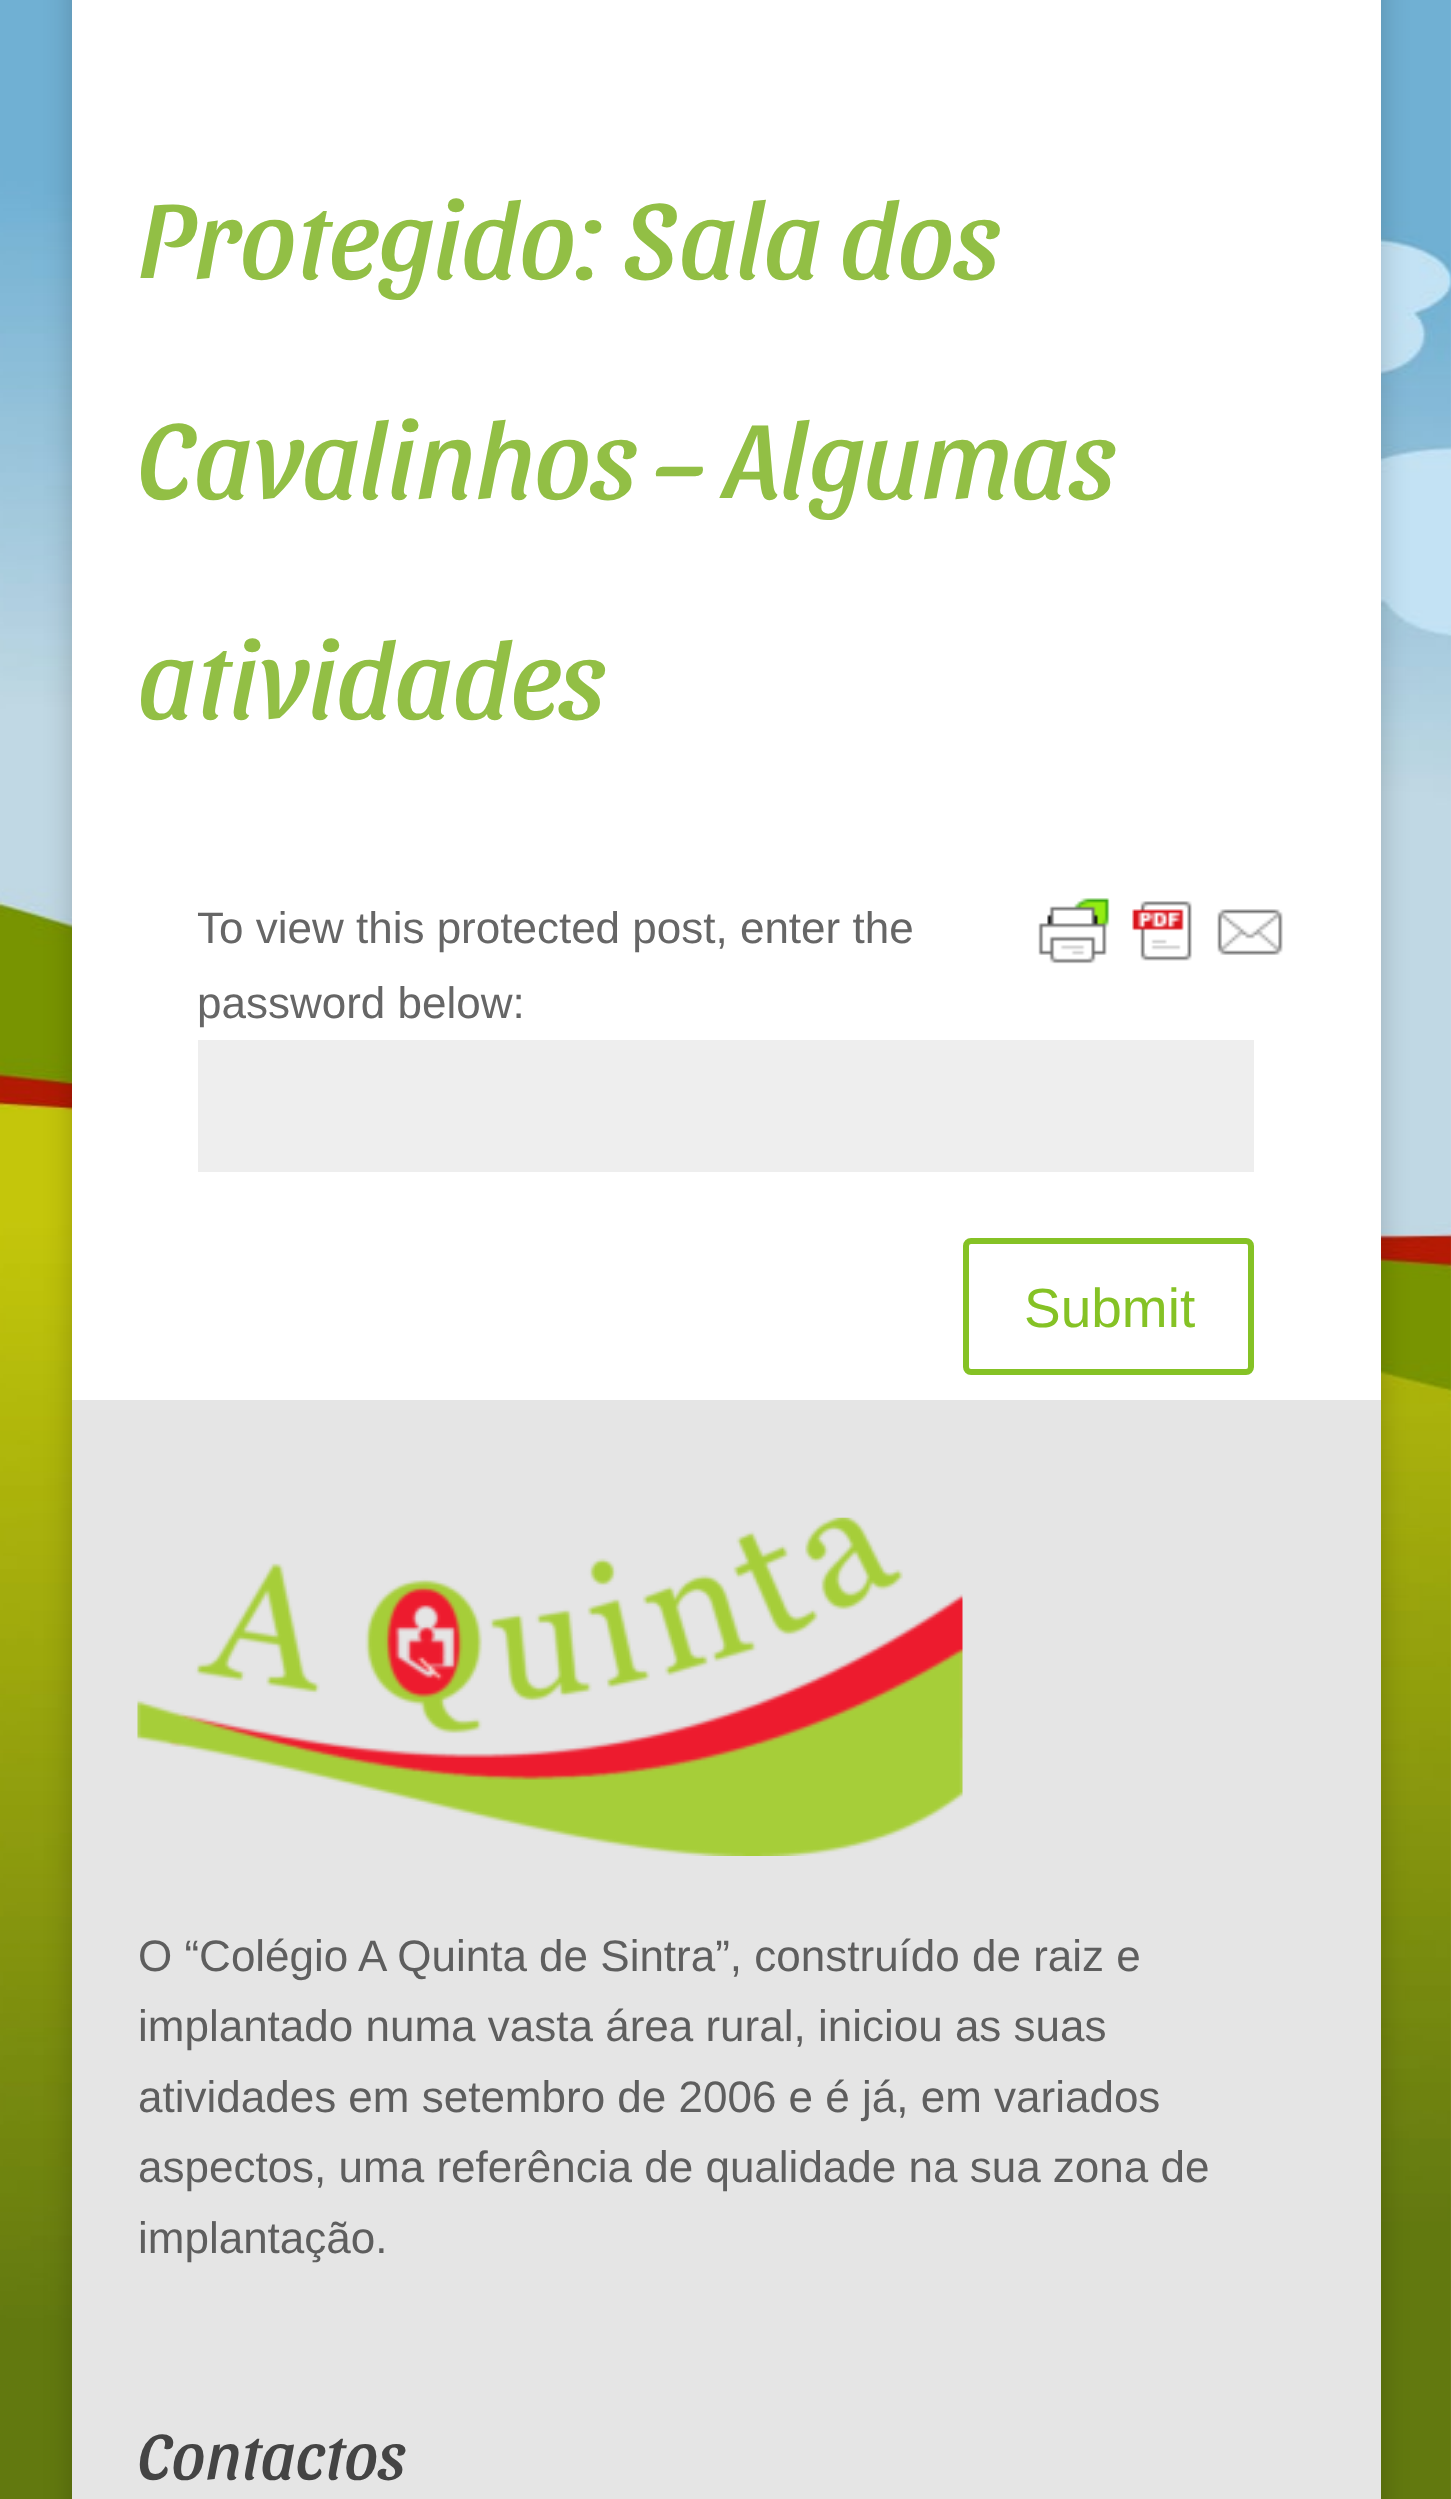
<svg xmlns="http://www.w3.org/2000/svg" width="1451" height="2499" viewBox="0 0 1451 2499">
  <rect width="100%" height="100%" fill="#fff"/>
  <image x="0" y="0" width="1451" height="2499" href="img/1.png"/>
  <path d="M72 -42h1309v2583H72z" fill="#00000033" filter="blur(14px)"/>
  <path d="M72 0h1309v1400H72z" fill="#fff"/>
  <image x="1038" y="898" width="245" height="66" href="img/2.png"/>
  <path d="M198 1040h1056v132H198z" fill="#eee"/>
  <rect x="966" y="1241" width="285" height="131" rx="5" fill="none" stroke="#85c225" stroke-width="6"/>
  <path d="M72 1400h1309v1099H72z" fill="#e5e5e5"/>
  <image x="137" y="1517" width="826" height="339" href="img/3.png"/>
  <g font-family="Sansita" font-size="110" font-style="italic" fill="#92bf45">
    <text x="138" y="278">Protegido: Sala dos</text>
    <text x="138" y="498">Cavalinhos – Algumas</text>
    <text x="138" y="718">atividades</text>
  </g>
  <g font-family="Liberation Sans" font-size="44" fill="#666">
    <text x="197" y="943">To view this protected post, enter the</text>
    <text x="197" y="1018">password below:</text>
  </g>
  <text x="1024" y="1327" font-family="Liberation Sans" font-size="55" fill="#85c225">Submit</text>
  <g font-family="Liberation Sans" font-size="44" fill="#5e5e5e">
    <text x="138" y="1971">O “Colégio A Quinta de Sintra”, construído de raiz e</text>
    <text x="138" y="2041">implantado numa vasta área rural, iniciou as suas</text>
    <text x="138" y="2112">atividades em setembro de 2006 e é já, em variados</text>
    <text x="138" y="2182">aspectos, uma referência de qualidade na sua zona de</text>
    <text x="138" y="2253">implantação.</text>
  </g>
  <text x="138" y="2479" font-family="Sansita" font-size="66" font-style="italic" fill="#444">Contactos</text>
</svg>
